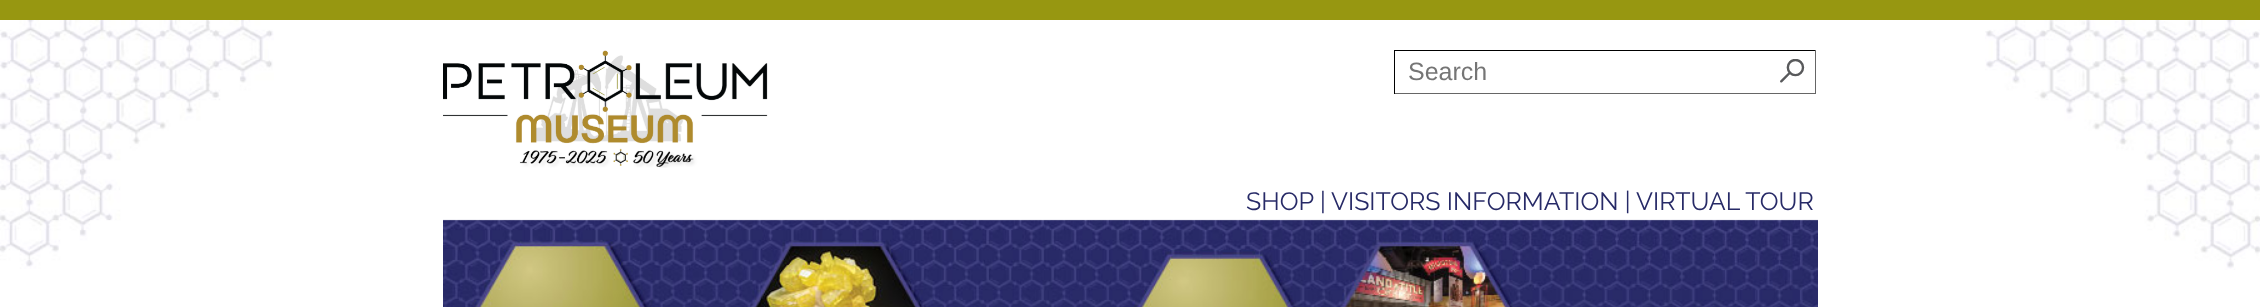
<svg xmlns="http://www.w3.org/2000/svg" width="2260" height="307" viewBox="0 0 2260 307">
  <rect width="100%" height="100%" fill="#fff"/>
  <path d="M0 0h2260v20H0z" fill="#979711"/>
  <image x="0" y="20" width="2260" height="250" href="img/1.png"/>
  <image x="443" y="50" width="325" height="118" href="img/2.png"/>
  <path d="M1394 50h422v1H1394z" fill="#000"/>
  <path d="M1815 50h1v44H1815z" fill="#666"/>
  <path d="M1394 93h422v1H1394z" fill="#666"/>
  <path d="M1394 50h1v44H1394z" fill="#000"/>
  <image x="1780" y="59" width="25" height="24" href="img/3.png"/>
  <image x="443" y="219" width="1375" height="88" href="img/4.png"/>
  <text x="1408" y="80" font-family="Liberation Sans" font-size="25" fill="#757575">Search</text>
  <g font-family="Raleway" font-size="25" fill="#272a67">
    <text x="1246" y="210">SHOP</text>
    <text x="1320" y="210">|</text>
    <text x="1331" y="210">VISITORS INFORMATION |</text>
    <text x="1636" y="210">VIRTUAL TOUR</text>
  </g>
</svg>
